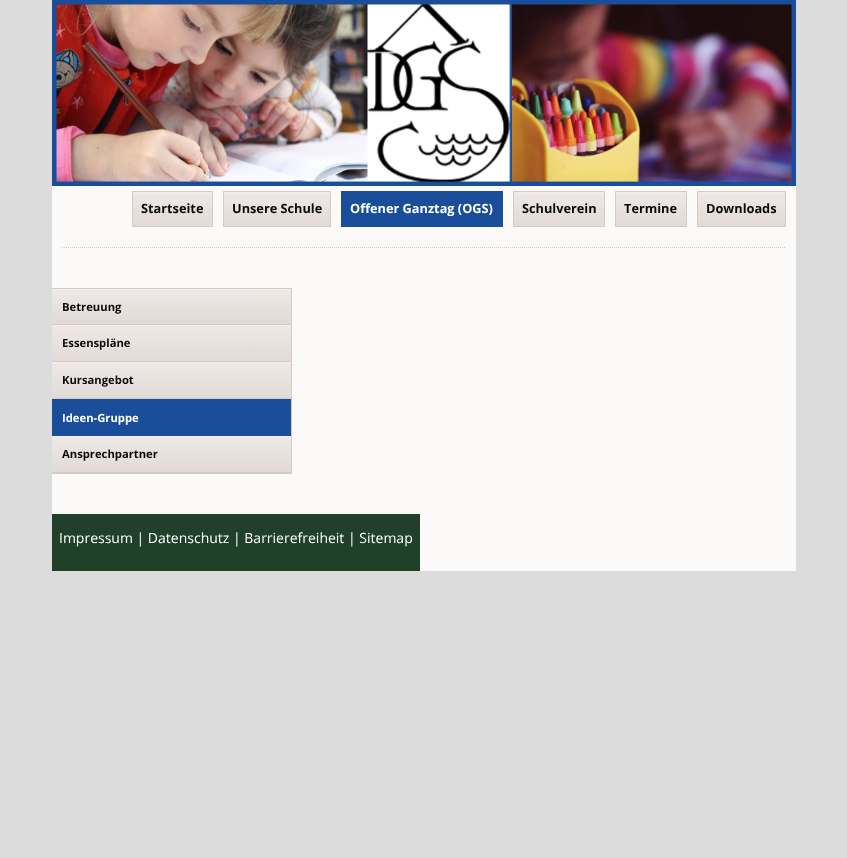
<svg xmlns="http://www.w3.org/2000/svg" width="847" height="858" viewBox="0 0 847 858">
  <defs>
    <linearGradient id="g1" gradientUnits="userSpaceOnUse" x1="173" y1="192" x2="173" y2="226"><stop offset="0" stop-color="#f4f2f0"/><stop offset="0.03" stop-color="#eee9e7"/><stop offset="1" stop-color="#e1dad6"/></linearGradient>
    <linearGradient id="g2" gradientUnits="userSpaceOnUse" x1="277" y1="192" x2="277" y2="226"><stop offset="0" stop-color="#f4f2f0"/><stop offset="0.03" stop-color="#eee9e7"/><stop offset="1" stop-color="#e1dad6"/></linearGradient>
    <linearGradient id="g3" gradientUnits="userSpaceOnUse" x1="559" y1="192" x2="559" y2="226"><stop offset="0" stop-color="#f4f2f0"/><stop offset="0.03" stop-color="#eee9e7"/><stop offset="1" stop-color="#e1dad6"/></linearGradient>
    <linearGradient id="g4" gradientUnits="userSpaceOnUse" x1="651" y1="192" x2="651" y2="226"><stop offset="0" stop-color="#f4f2f0"/><stop offset="0.03" stop-color="#eee9e7"/><stop offset="1" stop-color="#e1dad6"/></linearGradient>
    <linearGradient id="g5" gradientUnits="userSpaceOnUse" x1="742" y1="192" x2="742" y2="226"><stop offset="0" stop-color="#f4f2f0"/><stop offset="0.03" stop-color="#eee9e7"/><stop offset="1" stop-color="#e1dad6"/></linearGradient>
    <linearGradient id="g6" gradientUnits="userSpaceOnUse" x1="172" y1="289" x2="172" y2="324"><stop offset="0" stop-color="#f4f2f0"/><stop offset="0.03" stop-color="#eee9e7"/><stop offset="1" stop-color="#e1dad6"/></linearGradient>
    <linearGradient id="g7" gradientUnits="userSpaceOnUse" x1="172" y1="325" x2="172" y2="361"><stop offset="0" stop-color="#f4f2f0"/><stop offset="0.03" stop-color="#eee9e7"/><stop offset="1" stop-color="#e1dad6"/></linearGradient>
    <linearGradient id="g8" gradientUnits="userSpaceOnUse" x1="172" y1="362" x2="172" y2="398"><stop offset="0" stop-color="#f4f2f0"/><stop offset="0.03" stop-color="#eee9e7"/><stop offset="1" stop-color="#e1dad6"/></linearGradient>
    <linearGradient id="g9" gradientUnits="userSpaceOnUse" x1="172" y1="436" x2="172" y2="472"><stop offset="0" stop-color="#f4f2f0"/><stop offset="0.03" stop-color="#eee9e7"/><stop offset="1" stop-color="#e1dad6"/></linearGradient>
  </defs>
  <rect width="100%" height="100%" fill="#dcdcdc"/>
  <path d="M52 186h744v385H52z" fill="#fbfaf9"/>
  <image x="52" y="0" width="744" height="186" href="img/1.png"/>
  <path d="M133 192h79v34H133z" fill="url(#g1)"/>
  <path d="M132.5 191.5h80v35H132.5z" fill="none" stroke="#d4cbc5"/>
  <path d="M224 192h106v34H224z" fill="url(#g2)"/>
  <path d="M223.5 191.5h107v35H223.5z" fill="none" stroke="#d4cbc5"/>
  <path d="M341 191h162v36H341z" fill="#1a4d9a"/>
  <path d="M514 192h90v34H514z" fill="url(#g3)"/>
  <path d="M513.5 191.5h91v35H513.5z" fill="none" stroke="#d4cbc5"/>
  <path d="M616 192h70v34H616z" fill="url(#g4)"/>
  <path d="M615.5 191.5h71v35H615.5z" fill="none" stroke="#d4cbc5"/>
  <path d="M698 192h87v34H698z" fill="url(#g5)"/>
  <path d="M697.5 191.5h88v35H697.5z" fill="none" stroke="#d4cbc5"/>
  <path d="M62 247.5H786" fill="none" stroke="#d4cbc5" stroke-dasharray="1 1"/>
  <path d="M52 288h240v1H52z" fill="#d4cbc5"/>
  <path d="M291 288h1v186H291z" fill="#d4cbc5"/>
  <path d="M52 473h240v1H52z" fill="#d4cbc5"/>
  <path d="M52 289h239v35H52z" fill="url(#g6)"/>
  <path d="M52 324h239v1H52z" fill="#d4cbc5"/>
  <path d="M52 325h239v36H52z" fill="url(#g7)"/>
  <path d="M52 361h239v1H52z" fill="#d4cbc5"/>
  <path d="M52 362h239v36H52z" fill="url(#g8)"/>
  <path d="M52 398h239v1H52z" fill="#d4cbc5"/>
  <path d="M52 399h239v37H52z" fill="#1a4d9a"/>
  <path d="M52 436h239v36H52z" fill="url(#g9)"/>
  <path d="M52 472h239v1H52z" fill="#d4cbc5"/>
  <path d="M52 514h368v57H52z" fill="#20402a"/>
  <g font-family="Open Sans" font-size="12.75" font-weight="bold" fill="#0a0a0a">
    <text x="141" y="213">Startseite</text>
    <text x="232" y="213">Unsere Schule</text>
  </g>
  <text x="350" y="213" font-family="Open Sans" font-size="12.75" font-weight="bold" fill="#fff">Offener Ganztag (OGS)</text>
  <g font-family="Open Sans" font-size="12.75" font-weight="bold" fill="#0a0a0a">
    <text x="522" y="213">Schulverein</text>
    <text x="624" y="213">Termine</text>
    <text x="706" y="213">Downloads</text>
  </g>
  <g font-family="Open Sans" font-size="11.25" font-weight="bold" fill="#0a0a0a">
    <text x="62" y="311">Betreuung</text>
    <text x="62" y="347">Essenspläne</text>
    <text x="62" y="384">Kursangebot</text>
  </g>
  <text x="62" y="422" font-family="Open Sans" font-size="11.25" font-weight="bold" fill="#fff">Ideen-Gruppe</text>
  <text x="62" y="458" font-family="Open Sans" font-size="11.25" font-weight="bold" fill="#0a0a0a">Ansprechpartner</text>
  <text x="59" y="543" font-family="Open Sans" font-size="14" fill="#fff">Impressum | Datenschutz | Barrierefreiheit | Sitemap</text>
</svg>
